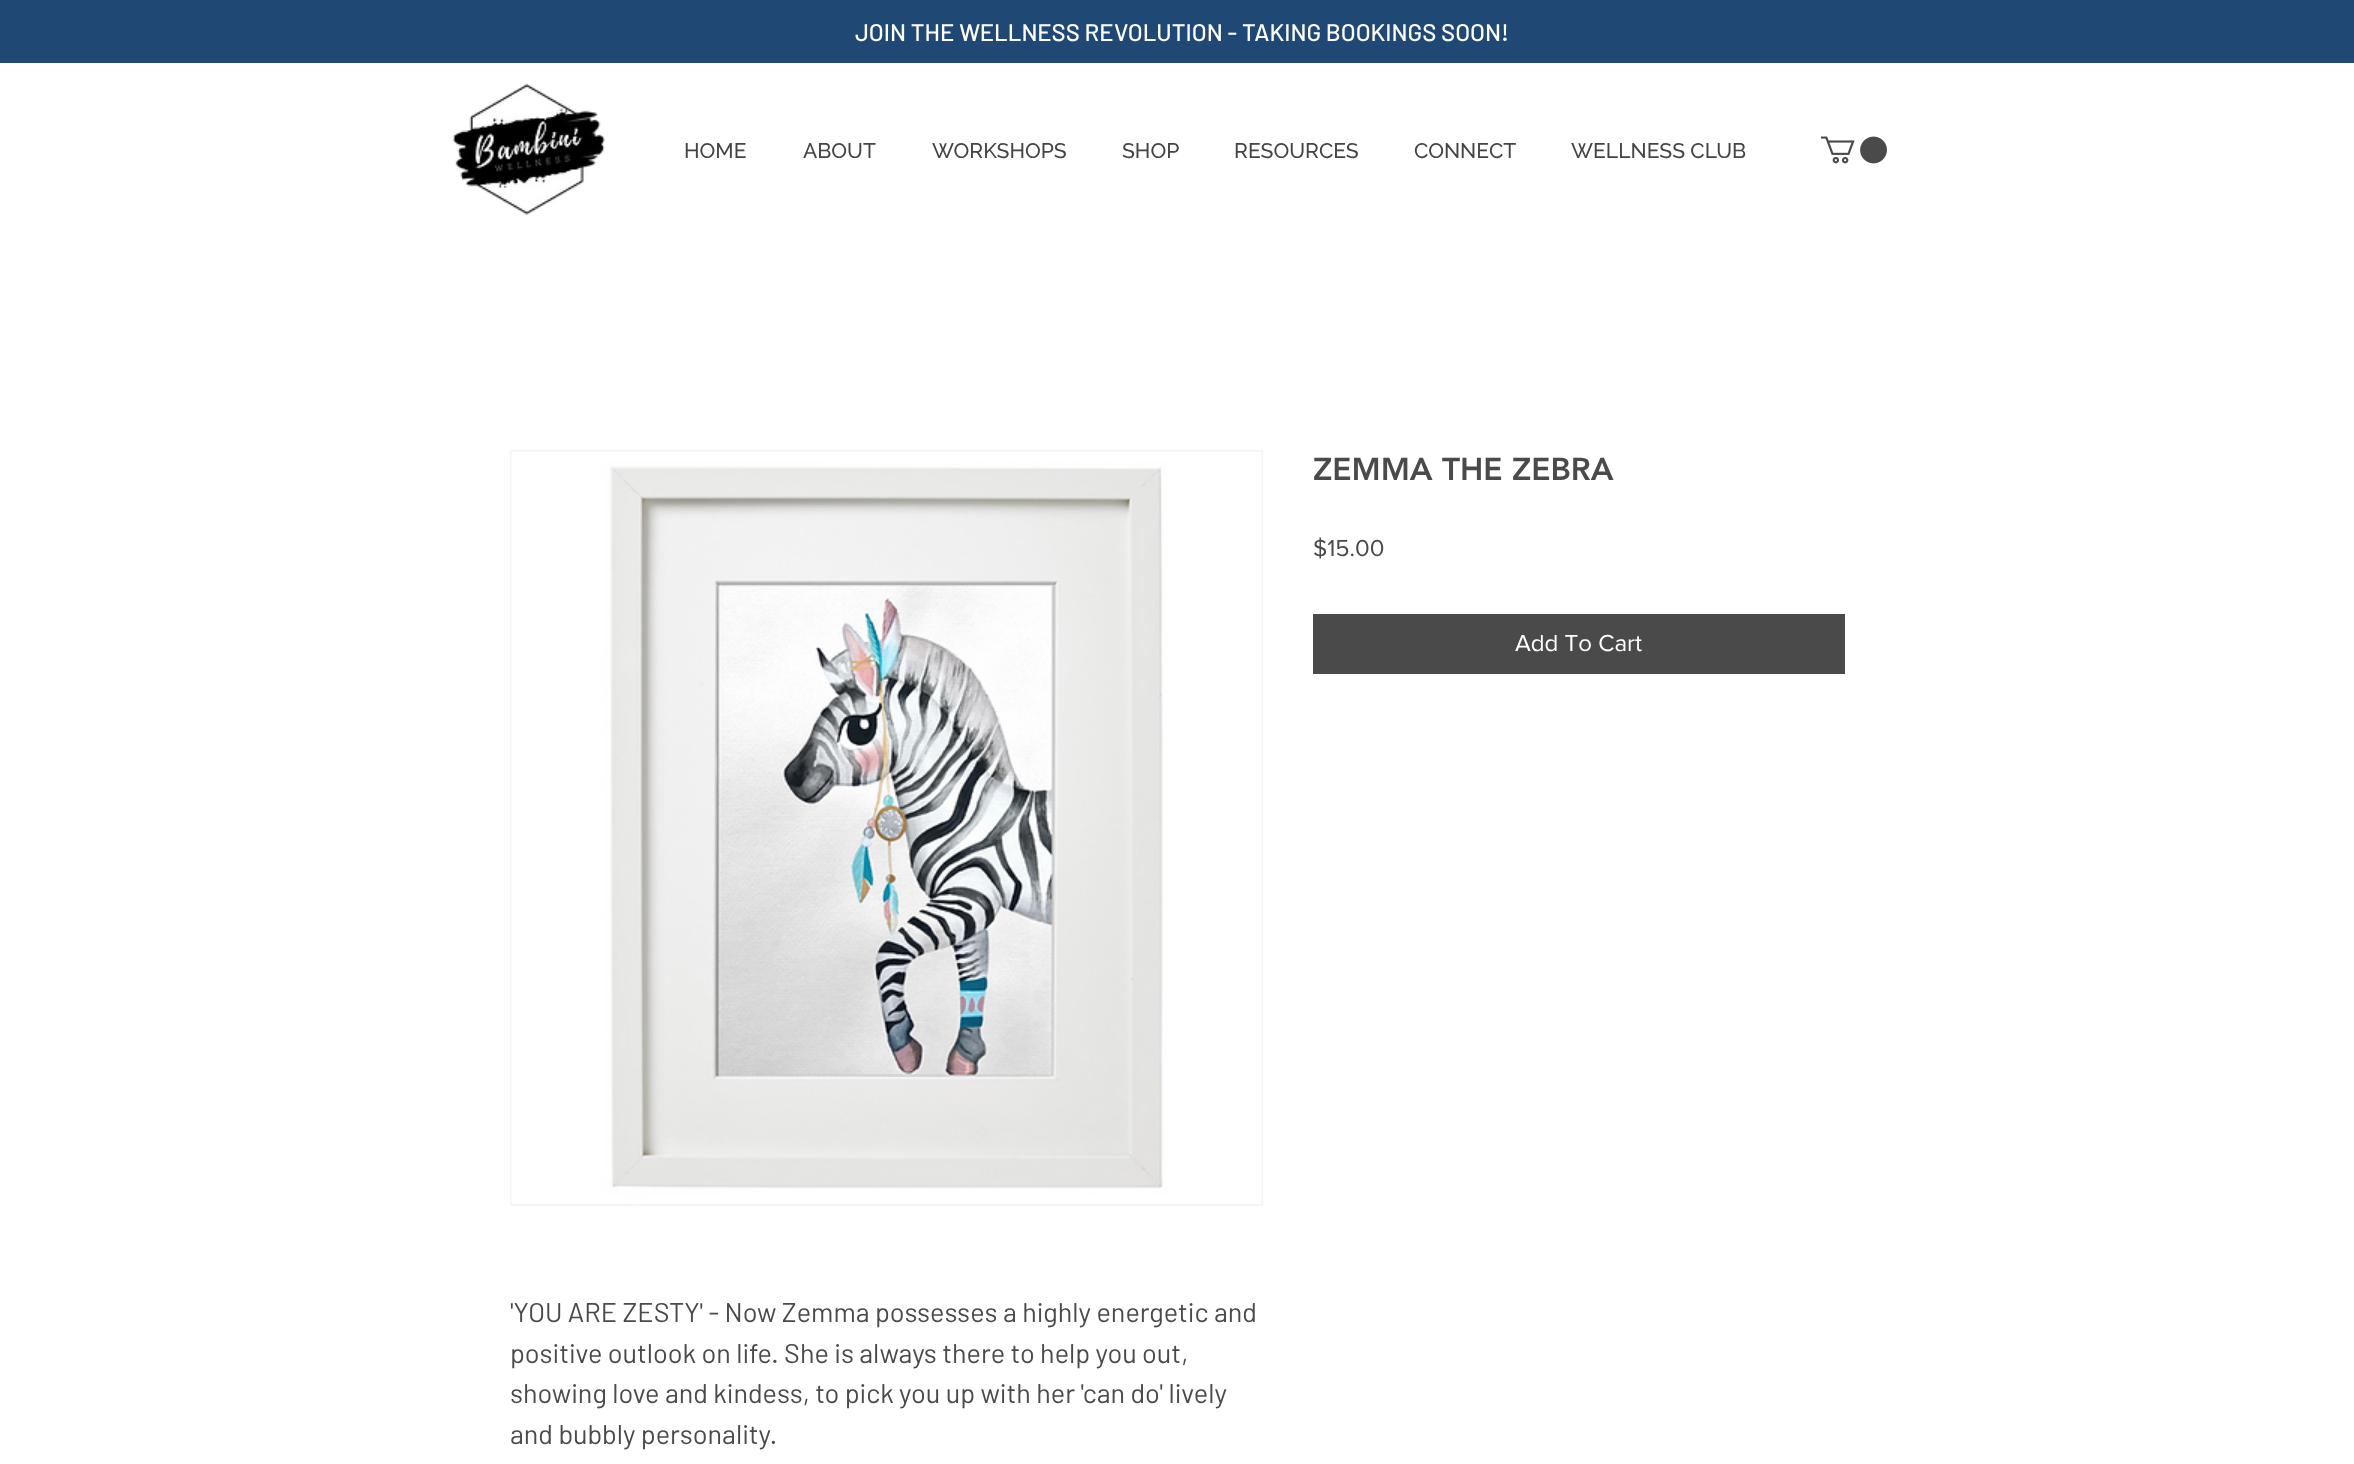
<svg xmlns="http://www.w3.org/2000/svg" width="2354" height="1464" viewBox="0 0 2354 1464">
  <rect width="100%" height="100%" fill="#fff"/>
  <path d="M0 0h2354v63H0z" fill="#204875"/>
  <image x="452" y="83" width="153" height="132" href="img/1.png"/>
  <image x="1821" y="136" width="66" height="28" href="img/2.png"/>
  <path d="M1313 614h532v60H1313z" fill="#4a4a4a"/>
  <path d="M511 451h751v754H511z" fill="none" stroke="#f5f5f5" stroke-width="2"/>
  <image x="511" y="451" width="751" height="752" href="img/3.png"/>
  <text x="855" y="41" font-family="Barlow" font-size="24" font-weight="500" fill="#fff">JOIN THE WELLNESS REVOLUTION - TAKING BOOKINGS SOON!</text>
  <g font-family="Raleway" font-size="21" font-weight="500" fill="#444">
    <text x="684" y="158">HOME</text>
    <text x="803" y="158">ABOUT</text>
    <text x="932" y="158">WORKSHOPS</text>
    <text x="1122" y="158">SHOP</text>
    <text x="1234" y="158">RESOURCES</text>
    <text x="1414" y="158">CONNECT</text>
    <text x="1571" y="158">WELLNESS CLUB</text>
  </g>
  <text x="1313" y="480" font-family="'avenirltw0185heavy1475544'" font-size="31.5" font-weight="900" fill="#4a4a4a">ZEMMA THE ZEBRA</text>
  <text x="1313" y="556" font-family="'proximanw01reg'" font-size="24" fill="#4a4a4a">$15.00</text>
  <text x="1515" y="651" font-family="'proximanw01reg'" font-size="24" fill="#fff">Add To Cart</text>
  <g font-family="Barlow" font-size="27" fill="#4a4a4a">
    <text x="510" y="1322">'YOU ARE ZESTY' - Now Zemma possesses a highly energetic and</text>
    <text x="510" y="1363">positive outlook on life. She is always there to help you out,</text>
    <text x="510" y="1403">showing love and kindess, to pick you up with her 'can do' lively</text>
    <text x="510" y="1444">and bubbly personality.</text>
  </g>
</svg>
